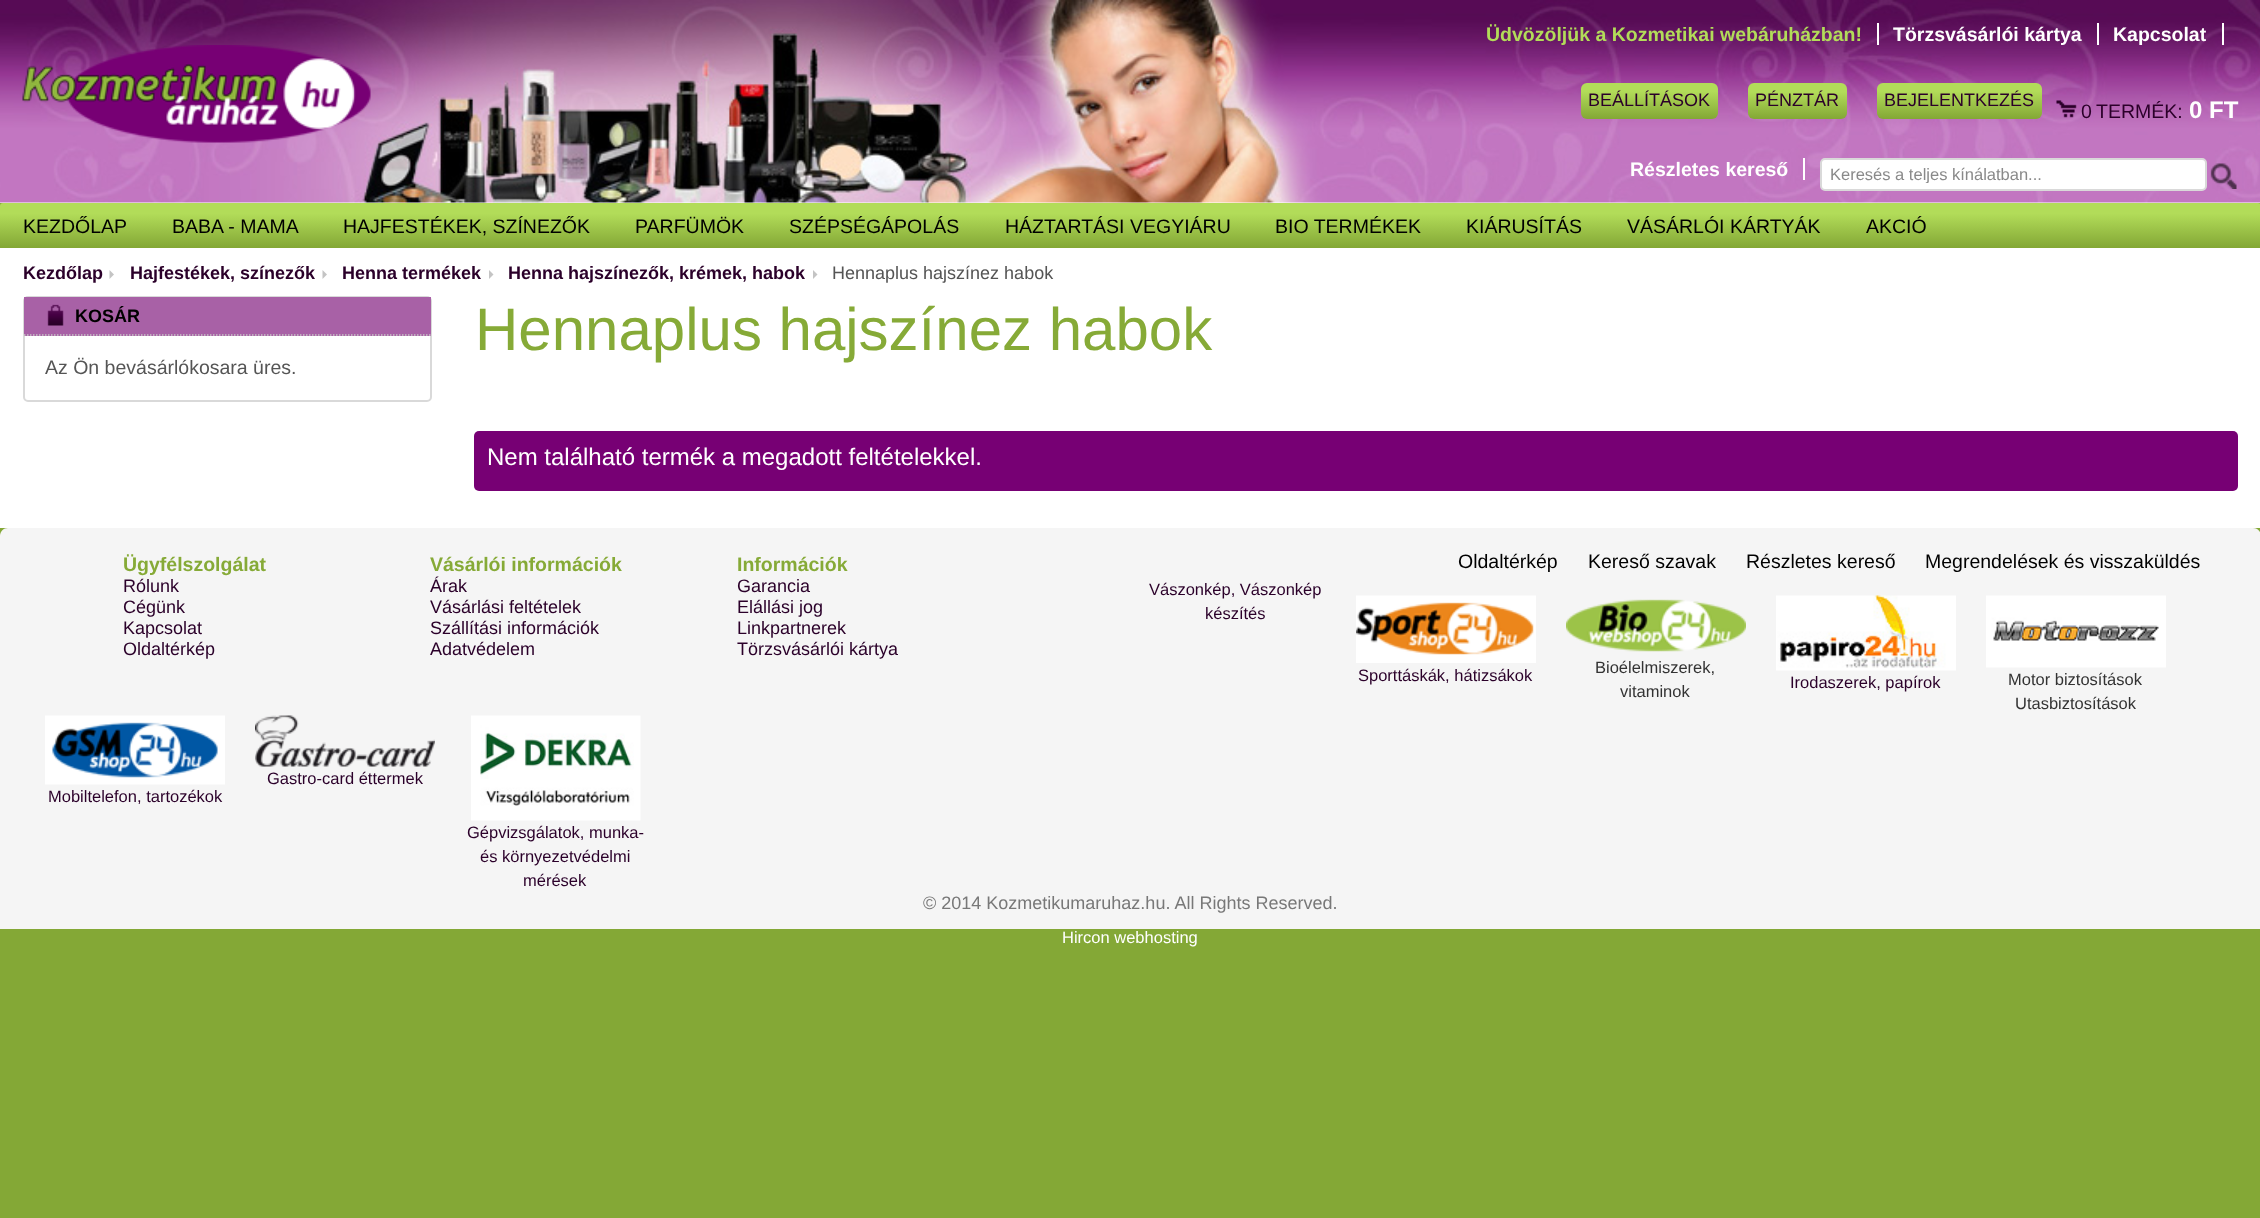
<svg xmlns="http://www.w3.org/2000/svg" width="2260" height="1218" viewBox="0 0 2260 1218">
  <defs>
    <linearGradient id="g1" gradientUnits="userSpaceOnUse" x1="1649" y1="82" x2="1649" y2="119"><stop offset="0.25" stop-color="#b2dc59"/><stop offset="1" stop-color="#83a735"/></linearGradient>
    <linearGradient id="g2" gradientUnits="userSpaceOnUse" x1="1797" y1="83" x2="1797" y2="119"><stop offset="0.25" stop-color="#b2dc59"/><stop offset="1" stop-color="#83a735"/></linearGradient>
    <linearGradient id="g3" gradientUnits="userSpaceOnUse" x1="1959" y1="82" x2="1959" y2="119"><stop offset="0.25" stop-color="#b2dc59"/><stop offset="1" stop-color="#83a735"/></linearGradient>
    <linearGradient id="g4" gradientUnits="userSpaceOnUse" x1="1130" y1="202" x2="1130" y2="248"><stop offset="0.25" stop-color="#b2dc59"/><stop offset="1" stop-color="#83a735"/></linearGradient>
    <clipPath id="clip1"><path d="M1830 165h375v18H1830z"/></clipPath>
  </defs>
  <rect width="100%" height="100%" fill="#84a836"/>
  <path d="M0 202h2260v1H0z" fill="#fff"/>
  <image x="0" y="0" width="2260" height="203" href="img/1.png"/>
  <path d="M1877 23h2v22H1877z" fill="#fff"/>
  <path d="M2097 23h2v22H2097z" fill="#fff"/>
  <path d="M2222 23h2v22H2222z" fill="#fff"/>
  <image x="22" y="45" width="349" height="98" href="img/2.png"/>
  <rect x="1581" y="83" width="137" height="36" rx="6" fill="url(#g1)"/>
  <rect x="1748" y="83" width="99" height="36" rx="6" fill="url(#g2)"/>
  <rect x="1877" y="83" width="165" height="36" rx="6" fill="url(#g3)"/>
  <image x="2056" y="100" width="21" height="18" href="img/3.png"/>
  <path d="M1803 158h2v22H1803z" fill="#fff"/>
  <rect x="1821" y="159" width="385" height="31" rx="4" fill="#fff" stroke="#d9d9d9" stroke-width="2"/>
  <image x="2210" y="163" width="27" height="26" href="img/4.png"/>
  <rect y="203" width="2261" height="45" rx="3" fill="url(#g4)"/>
  <path d="M0 248h2260v280H0z" fill="#fff"/>
  <path d="M109.5 279V270L114 274.5Z" fill="#c4c4c4"/>
  <path d="M322.5 279V270L327 274.5Z" fill="#c4c4c4"/>
  <path d="M489 279V270L493.5 274.5Z" fill="#c4c4c4"/>
  <path d="M813 279V270L817.5 274.5Z" fill="#c4c4c4"/>
  <rect x="24" y="297" width="407" height="104" rx="4" fill="none" stroke="#d9d9d9" stroke-width="2"/>
  <path d="M24 297h407v39H24z" fill="#a861a6"/>
  <path d="M24 335H430.5" fill="none" stroke="#c7c7c7" stroke-width="1.5" stroke-dasharray="1.5 1.5"/>
  <image x="47" y="304" width="17" height="22" href="img/5.png"/>
  <rect x="474" y="431" width="1764" height="60" rx="5" fill="#770074"/>
  <path d="M8 528H2253C2257.5 528 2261 531.5 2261 536V929H0V536C0 531.5 3.5 528 8 528Z" fill="#f5f5f5"/>
  <image x="1356" y="595" width="180" height="68" href="img/6.png"/>
  <image x="1566" y="599" width="180" height="53" href="img/7.png"/>
  <image x="1776" y="595" width="180" height="76" href="img/8.png"/>
  <image x="1986" y="595" width="180" height="73" href="img/9.png"/>
  <image x="255" y="715" width="180" height="52" href="img/10.png"/>
  <image x="45" y="715" width="180" height="70" href="img/11.png"/>
  <image x="471" y="715" width="170" height="106" href="img/12.png"/>
  <text x="1486" y="41" font-family="Liberation Sans" font-size="19.5" font-weight="bold" fill="#b2dc59">Üdvözöljük a Kozmetikai webáruházban!</text>
  <g font-family="Liberation Sans" font-size="19.5" font-weight="bold" fill="#fff">
    <text x="1893" y="41">Törzsvásárlói kártya</text>
    <text x="2113" y="41">Kapcsolat</text>
  </g>
  <g font-family="Liberation Sans" font-size="18" fill="#2b002a">
    <text x="1588" y="106">BEÁLLÍTÁSOK</text>
    <text x="1755" y="106">PÉNZTÁR</text>
    <text x="1884" y="106">BEJELENTKEZÉS</text>
  </g>
  <g font-family="Liberation Sans" font-size="19.5" fill="#2b002a">
    <text x="2081" y="118">0</text>
    <text x="2096" y="118">TERMÉK:</text>
  </g>
  <text x="2189" y="118" font-family="Liberation Sans" font-size="24" font-weight="bold" fill="#fff">0 FT</text>
  <text x="1630" y="176" font-family="Liberation Sans" font-size="19.5" font-weight="bold" fill="#fff">Részletes kereső</text>
  <g clip-path="url(#clip1)">
    <text x="1830" y="180" font-family="Liberation Sans" font-size="16.5" fill="#898989">Keresés a teljes kínálatban...</text>
  </g>
  <g font-family="Liberation Sans" font-size="19.5" fill="#000">
    <text x="23" y="233">KEZDŐLAP</text>
    <text x="172" y="233">BABA - MAMA</text>
    <text x="343" y="233">HAJFESTÉKEK, SZÍNEZŐK</text>
    <text x="635" y="233">PARFÜMÖK</text>
    <text x="789" y="233">SZÉPSÉGÁPOLÁS</text>
    <text x="1005" y="233">HÁZTARTÁSI VEGYIÁRU</text>
    <text x="1275" y="233">BIO TERMÉKEK</text>
    <text x="1466" y="233">KIÁRUSÍTÁS</text>
    <text x="1627" y="233">VÁSÁRLÓI KÁRTYÁK</text>
    <text x="1866" y="233">AKCIÓ</text>
  </g>
  <g font-family="Liberation Sans" font-size="18" font-weight="bold" fill="#2b002a">
    <text x="23" y="279">Kezdőlap</text>
    <text x="130" y="279">Hajfestékek, színezők</text>
    <text x="342" y="279">Henna termékek</text>
    <text x="508" y="279">Henna hajszínezők, krémek, habok</text>
  </g>
  <text x="832" y="279" font-family="Liberation Sans" font-size="18" fill="#555">Hennaplus hajszínez habok</text>
  <text x="75" y="322" font-family="Liberation Sans" font-size="18" font-weight="bold" fill="#000">KOSÁR</text>
  <text x="45" y="374" font-family="Liberation Sans" font-size="19.5" fill="#555">Az Ön bevásárlókosara üres.</text>
  <text x="475" y="350" font-family="Liberation Sans" font-size="60" fill="#86aa37">Hennaplus hajszínez habok</text>
  <text x="487" y="465" font-family="Liberation Sans" font-size="24" fill="#fff">Nem található termék a megadott feltételekkel.</text>
  <text x="123" y="571" font-family="Liberation Sans" font-size="19.5" font-weight="bold" fill="#86aa37">Ügyfélszolgálat</text>
  <g font-family="Liberation Sans" font-size="18" fill="#2b002a">
    <text x="123" y="592">Rólunk</text>
    <text x="123" y="613">Cégünk</text>
    <text x="123" y="634">Kapcsolat</text>
    <text x="123" y="655">Oldaltérkép</text>
  </g>
  <text x="430" y="571" font-family="Liberation Sans" font-size="19.5" font-weight="bold" fill="#86aa37">Vásárlói információk</text>
  <g font-family="Liberation Sans" font-size="18" fill="#2b002a">
    <text x="430" y="592">Árak</text>
    <text x="430" y="613">Vásárlási feltételek</text>
    <text x="430" y="634">Szállítási információk</text>
    <text x="430" y="655">Adatvédelem</text>
  </g>
  <text x="737" y="571" font-family="Liberation Sans" font-size="19.5" font-weight="bold" fill="#86aa37">Információk</text>
  <g font-family="Liberation Sans" font-size="18" fill="#2b002a">
    <text x="737" y="592">Garancia</text>
    <text x="737" y="613">Elállási jog</text>
    <text x="737" y="634">Linkpartnerek</text>
    <text x="737" y="655">Törzsvásárlói kártya</text>
  </g>
  <g font-family="Liberation Sans" font-size="19.5" fill="#000">
    <text x="1458" y="568">Oldaltérkép</text>
    <text x="1588" y="568">Kereső szavak</text>
    <text x="1746" y="568">Részletes kereső</text>
    <text x="1925" y="568">Megrendelések és visszaküldés</text>
  </g>
  <g font-family="Liberation Sans" font-size="16.5" fill="#2b002a">
    <text x="1149" y="595">Vászonkép, Vászonkép</text>
    <text x="1205" y="619">készítés</text>
    <text x="1358" y="681">Sporttáskák, hátizsákok</text>
  </g>
  <g font-family="Liberation Sans" font-size="16.5" fill="#333">
    <text x="1595" y="673">Bioélelmiszerek,</text>
    <text x="1620" y="697">vitaminok</text>
  </g>
  <text x="1790" y="688" font-family="Liberation Sans" font-size="16.5" fill="#2b002a">Irodaszerek, papírok</text>
  <g font-family="Liberation Sans" font-size="16.5" fill="#333">
    <text x="2008" y="685">Motor biztosítások</text>
    <text x="2015" y="709">Utasbiztosítások</text>
  </g>
  <g font-family="Liberation Sans" font-size="16.5" fill="#2b002a">
    <text x="267" y="784">Gastro-card éttermek</text>
    <text x="48" y="802">Mobiltelefon, tartozékok</text>
    <text x="467" y="838">Gépvizsgálatok, munka-</text>
    <text x="480" y="862">és környezetvédelmi</text>
    <text x="523" y="886">mérések</text>
  </g>
  <text x="923" y="909" font-family="Liberation Sans" font-size="18" fill="#787878">© 2014 Kozmetikumaruhaz.hu. All Rights Reserved.</text>
  <text x="1062" y="943" font-family="Liberation Sans" font-size="16.5" fill="#fff">Hircon webhosting</text>
</svg>
